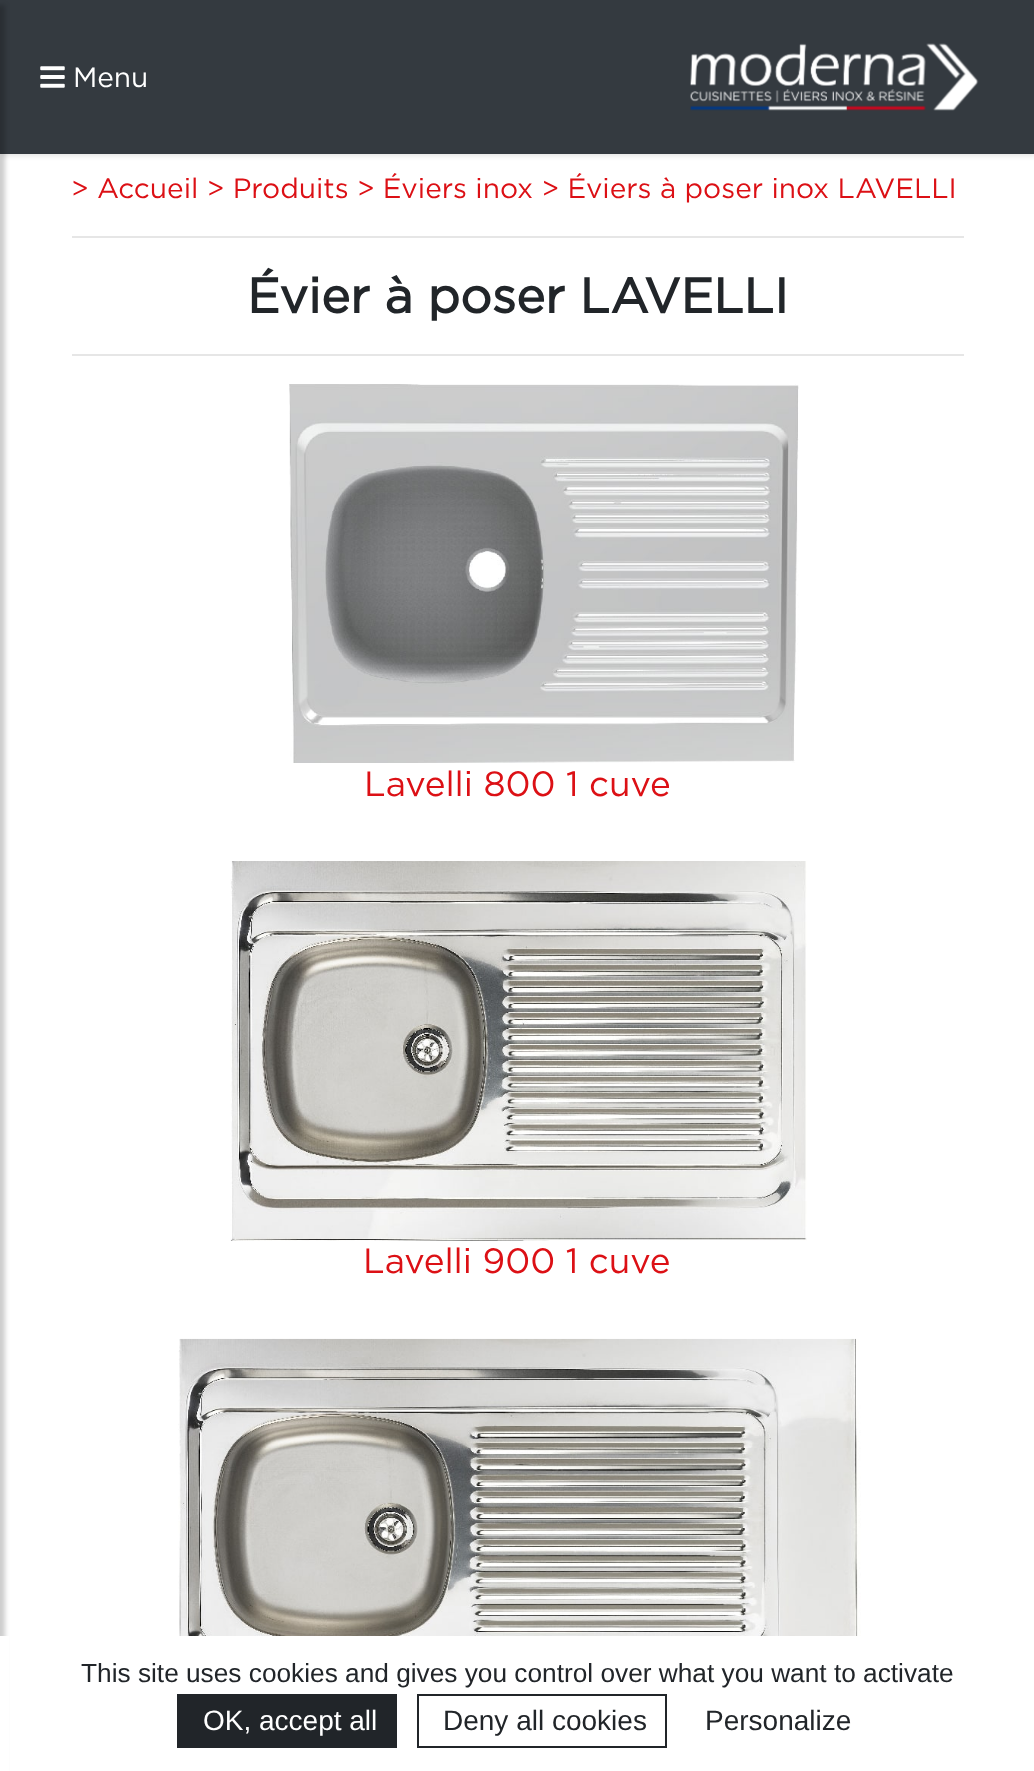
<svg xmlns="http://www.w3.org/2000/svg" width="1034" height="1771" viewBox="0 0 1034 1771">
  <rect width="100%" height="100%" fill="#fff"/>
  <path d="M2 2h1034v154H2z" fill="#0000001a" filter="blur(2.5px)"/>
  <path d="M0 0h1034v154H0z" fill="#343a40"/>
  <path d="M-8 5h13v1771H-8z" fill="#00000033" filter="blur(2.5px)"/>
  <image x="40" y="66" width="25" height="22" href="img/1.png"/>
  <image x="690" y="43" width="289" height="68" href="img/2.png"/>
  <path d="M72 236h892v2H72z" fill="#e6e6e6"/>
  <path d="M72 354h892v2H72z" fill="#e6e6e6"/>
  <image x="289" y="384" width="510" height="379" href="img/3.png"/>
  <image x="230" y="861" width="577" height="380" href="img/4.png"/>
  <image x="178" y="1338" width="683" height="298" href="img/5.png"/>
  <path d="M0 1636h9v135H0z" fill="#fff"/>
  <path d="M177 1694h220v54H177z" fill="#212529"/>
  <path d="M418 1695h248v52H418z" fill="none" stroke="#212529" stroke-width="2"/>
  <text x="73" y="87" font-family="Gotham" font-size="28" fill="#fff">Menu</text>
  <text x="71" y="198" font-family="Gotham" font-size="28" fill="#dc1015">&gt; Accueil &gt; Produits &gt; Éviers inox &gt; Éviers à poser inox LAVELLI</text>
  <text x="247" y="313" font-family="Gotham" font-size="49" font-weight="bold" fill="#212529">Évier à poser LAVELLI</text>
  <g font-family="Gotham" font-size="35" fill="#dc1015">
    <text x="364" y="796">Lavelli 800 1 cuve</text>
    <text x="363" y="1273">Lavelli 900 1 cuve</text>
  </g>
  <text x="81" y="1682" font-family="Liberation Sans" font-size="26.25" fill="#212529">This site uses cookies and gives you control over what you want to activate</text>
  <text x="203" y="1730" font-family="Liberation Sans" font-size="28" fill="#fff">OK, accept all</text>
  <g font-family="Liberation Sans" font-size="28" fill="#212529">
    <text x="443" y="1730">Deny all cookies</text>
    <text x="705" y="1730">Personalize</text>
  </g>
</svg>
